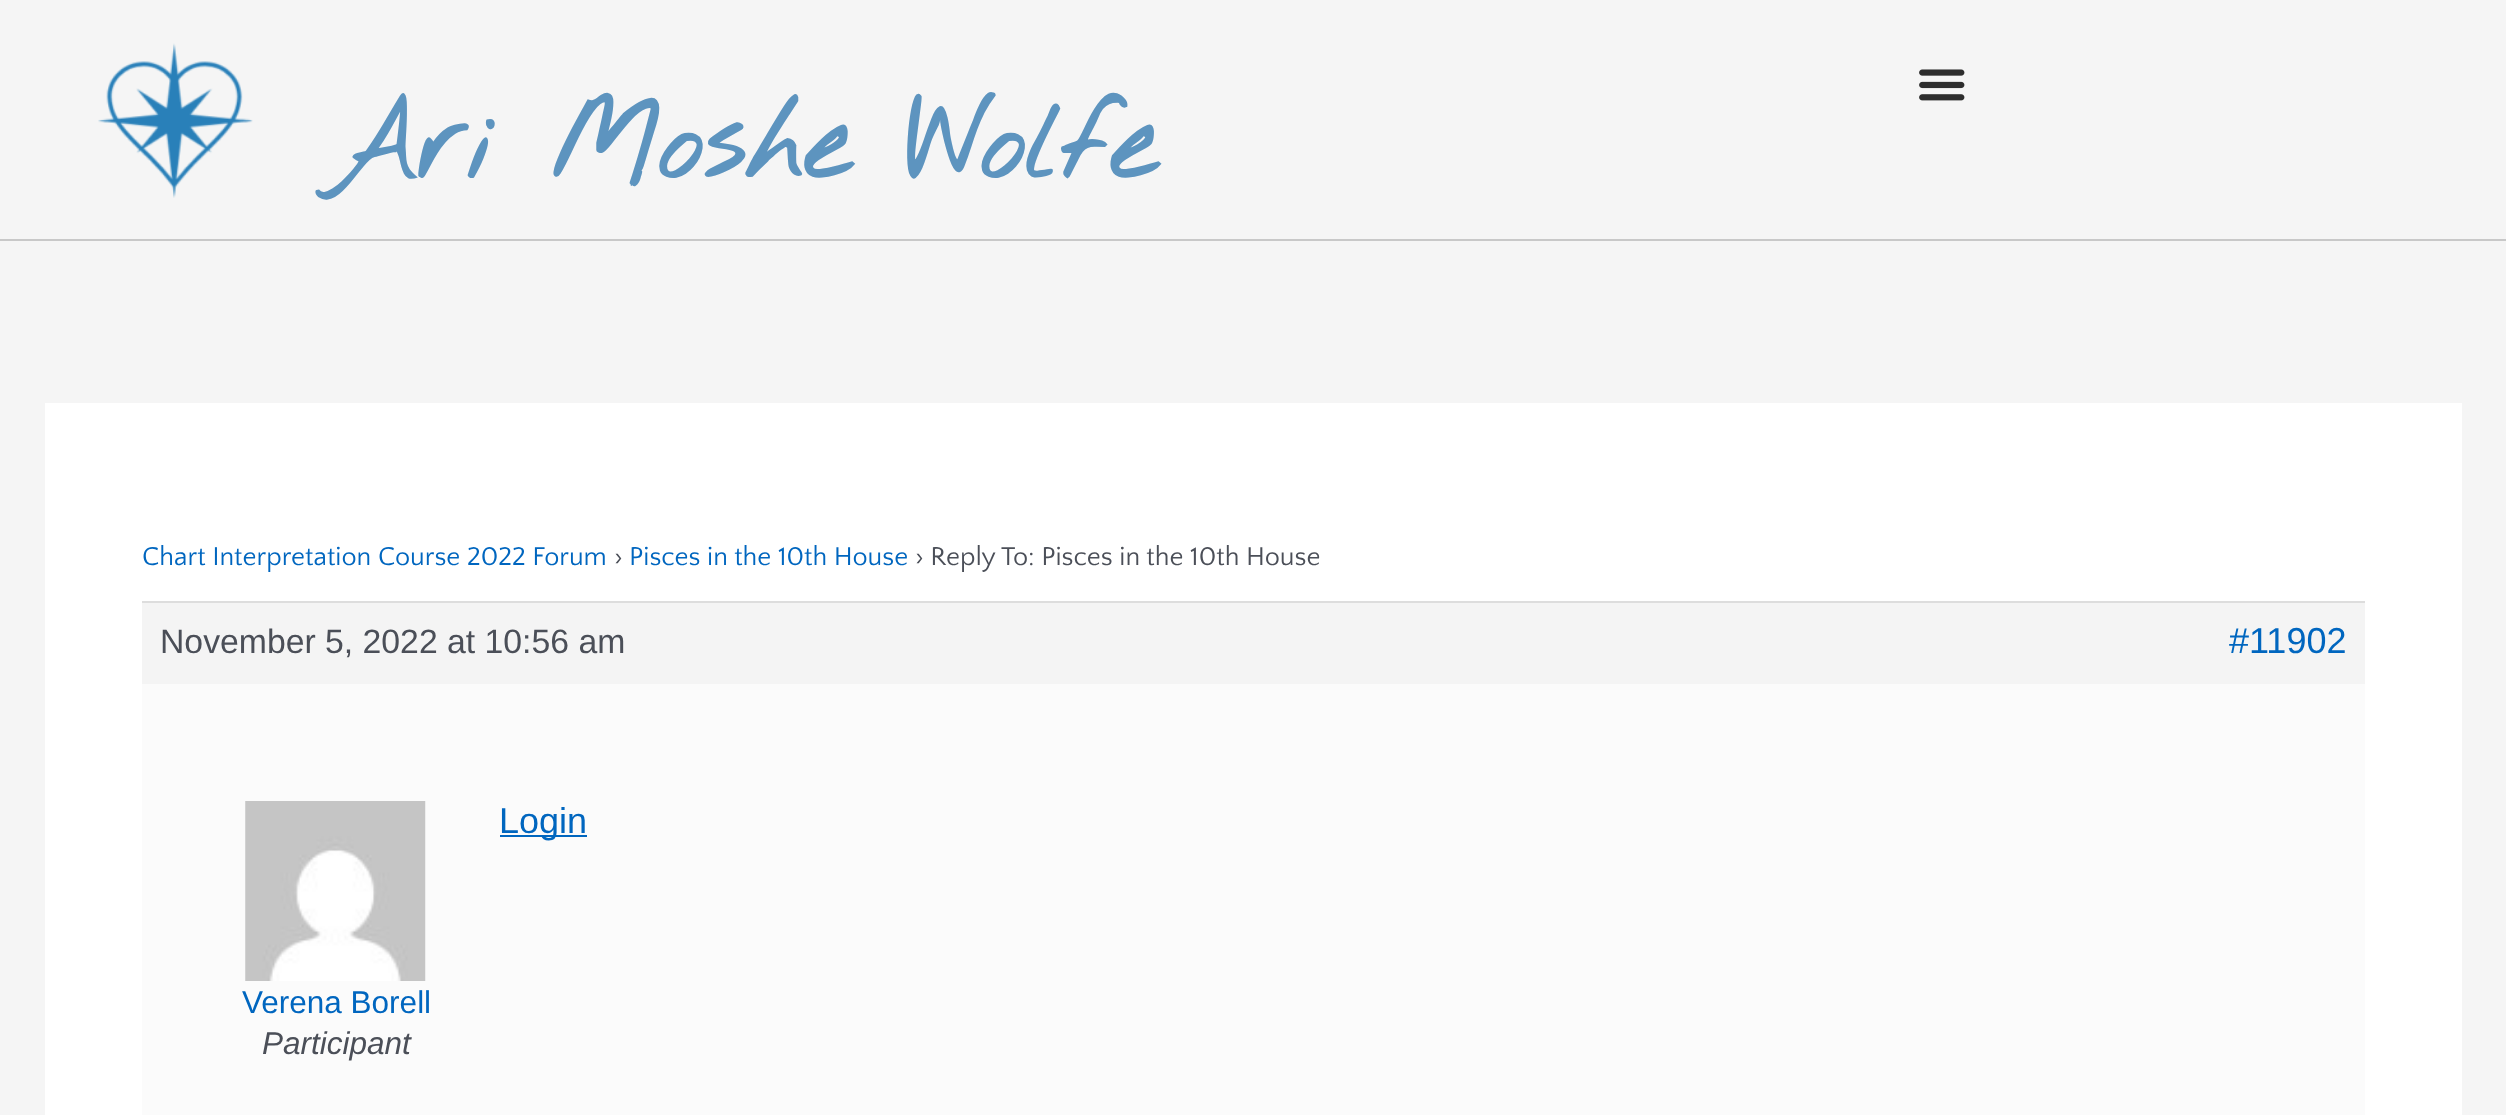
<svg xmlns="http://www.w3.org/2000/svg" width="2506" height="1115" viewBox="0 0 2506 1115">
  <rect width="100%" height="100%" fill="#f5f5f5"/>
  <path d="M0 239h2506v2H0z" fill="#c8c8c8"/>
  <image x="98" y="43" width="155" height="155" href="img/1.png"/>
  <image x="1919" y="69" width="46" height="32" href="img/2.png"/>
  <path d="M45 403h2417v712H45z" fill="#fff"/>
  <path d="M142 603h2223v81H142z" fill="#f4f4f4"/>
  <path d="M142 601h2223v2H142z" fill="#ddd"/>
  <path d="M142 684h2223v431H142z" fill="#fbfbfb"/>
  <path d="M500 835h87v2H500z" fill="#0066bf"/>
  <image x="245" y="801" width="181" height="180" href="img/3.png"/>
  <text x="326" y="178" font-family="Nothing You Could Do" font-size="108" font-weight="bold" fill="#5d94bf">Ari Moshe Wolfe</text>
  <text x="142" y="565" font-family="Quattrocento Sans" font-size="27" fill="#0066bf">Chart Interpretation Course 2022 Forum</text>
  <text x="614" y="565" font-family="Quattrocento Sans" font-size="27" fill="#4b4f58">›</text>
  <text x="629" y="565" font-family="Quattrocento Sans" font-size="27" fill="#0066bf">Pisces in the 10th House</text>
  <text x="915" y="565" font-family="Quattrocento Sans" font-size="27" fill="#4b4f58">› Reply To: Pisces in the 10th House</text>
  <text x="160" y="653" font-family="Liberation Sans" font-size="33.75" fill="#4b4f58">November 5, 2022 at 10:56 am</text>
  <g font-family="Liberation Sans" font-size="36" fill="#0066bf">
    <text x="2229" y="653">#11902</text>
    <text x="499" y="833">Login</text>
  </g>
  <text x="242" y="1013" font-family="Liberation Sans" font-size="31.5" fill="#0066bf">Verena Borell</text>
  <text x="262" y="1054" font-family="Liberation Sans" font-size="31.5" font-style="italic" fill="#4b4f58">Participant</text>
</svg>
